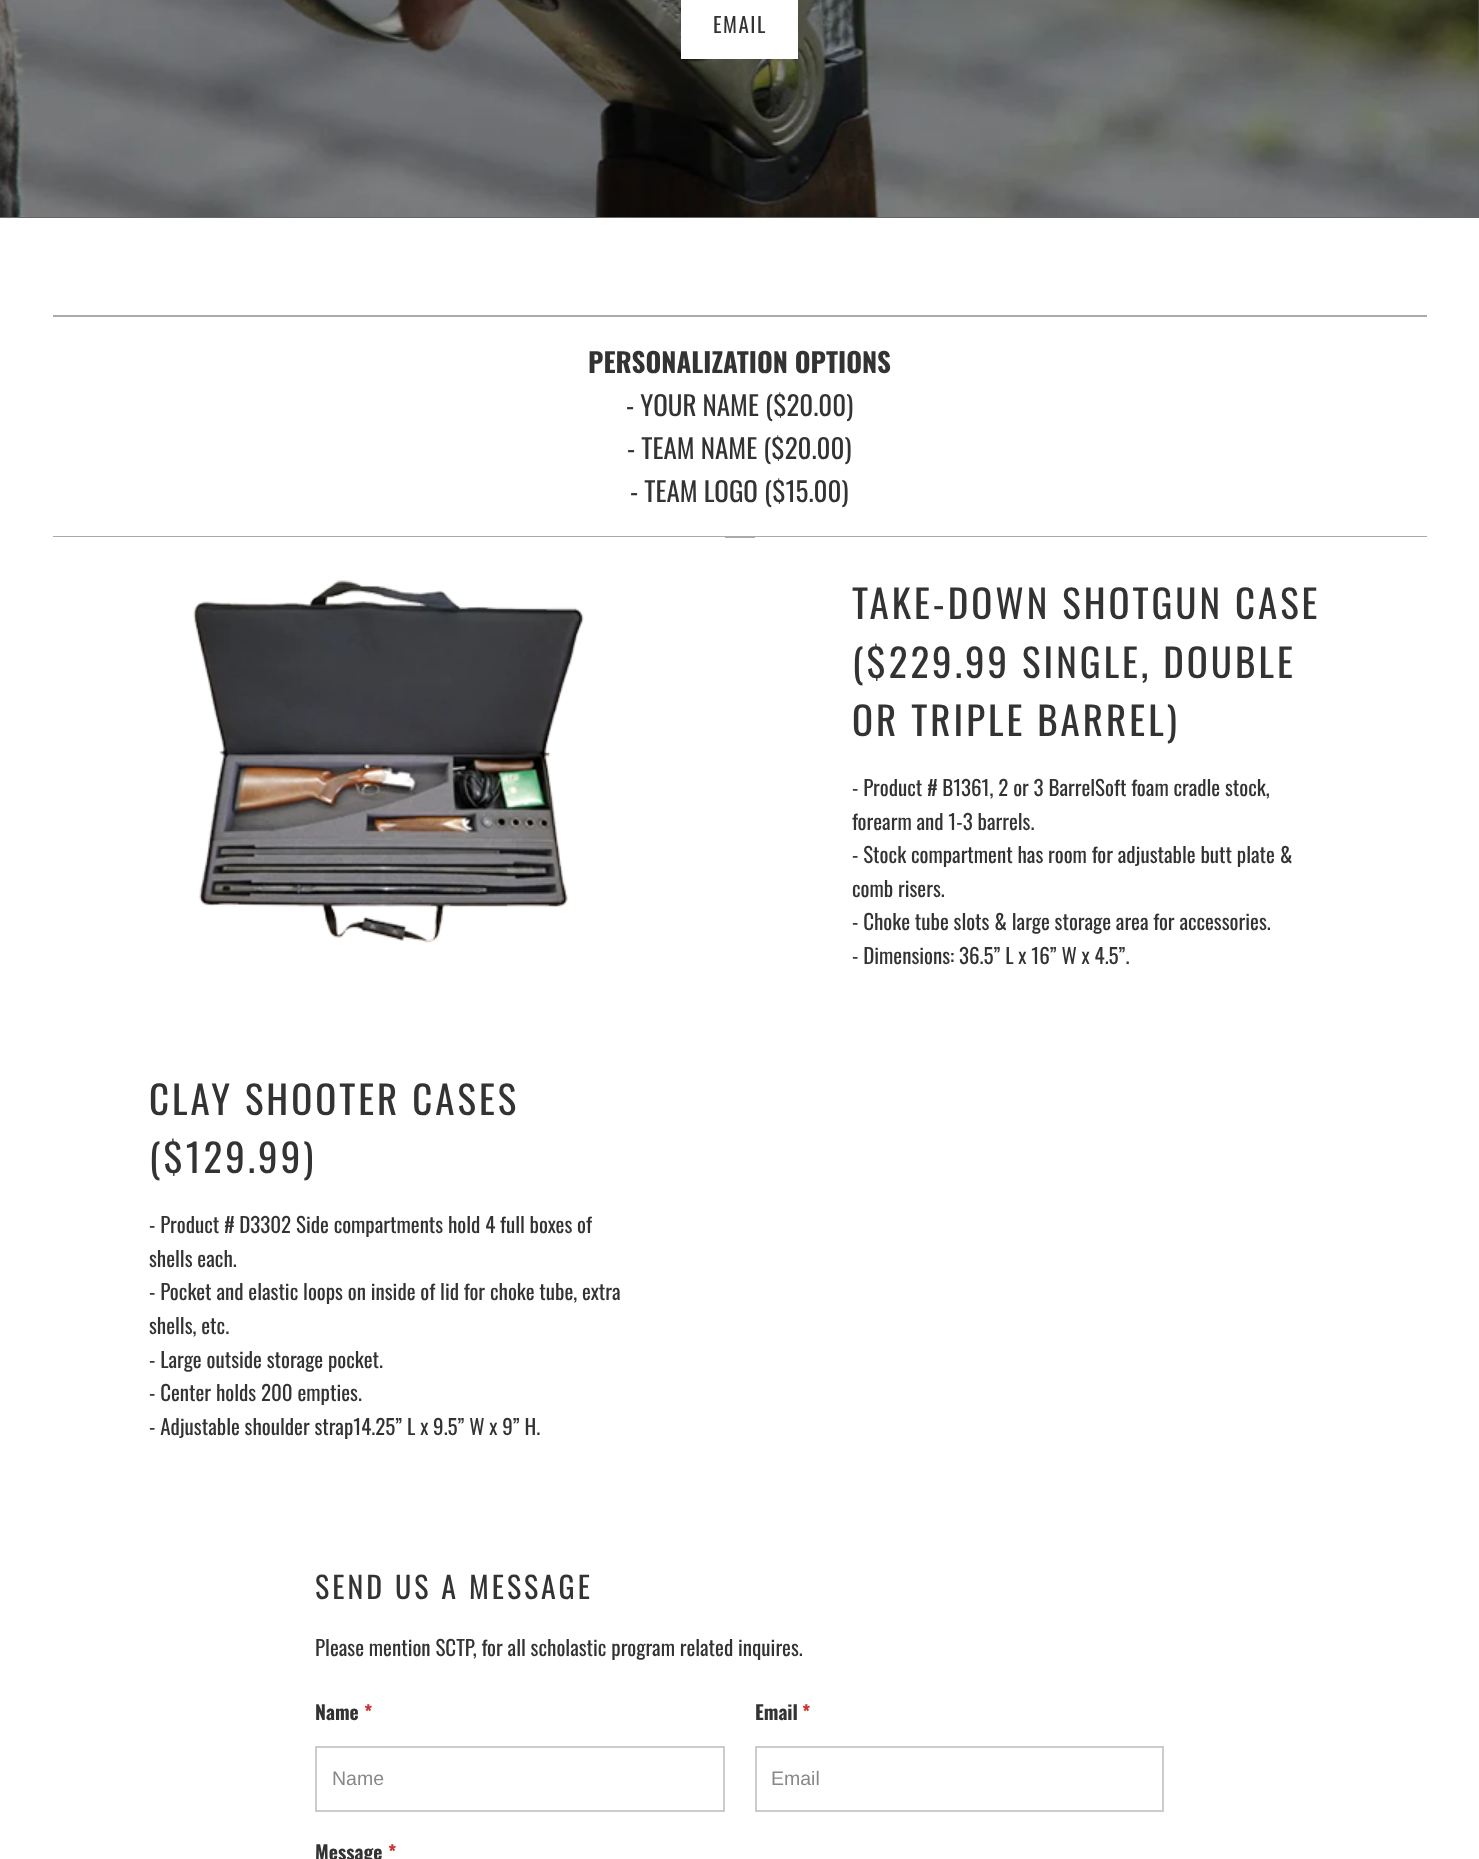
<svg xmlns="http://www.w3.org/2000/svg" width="1479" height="1859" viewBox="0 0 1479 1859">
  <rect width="100%" height="100%" fill="#fff"/>
  <path d="M0 0h1479v218H0z" fill="#666"/>
  <image x="0" y="0" width="1479" height="217" href="img/1.png"/>
  <path d="M681 0h117v59H681z" fill="#fff"/>
  <path d="M53 315h1374v2H53z" fill="#aaa"/>
  <path d="M53 536h1374v2H53z" fill="#aaa"/>
  <path d="M53 537h672v1H53z" fill="#fff"/>
  <image x="193" y="580" width="391" height="363" href="img/2.png"/>
  <path d="M755 537h672v1H755z" fill="#fff"/>
  <path d="M316 1747h408v64H316z" fill="none" stroke="#ccc" stroke-width="2"/>
  <path d="M756 1747h407v64H756z" fill="none" stroke="#ccc" stroke-width="2"/>
  <text x="713" y="33" font-family="Oswald" font-size="21" letter-spacing="1.5" fill="#333">EMAIL</text>
  <text x="588" y="373" font-family="Oswald" font-size="27" font-weight="bold" fill="#333">PERSONALIZATION OPTIONS</text>
  <g font-family="Oswald" font-size="27" fill="#333">
    <text x="626" y="416">- YOUR NAME ($20.00)</text>
    <text x="627" y="459">- TEAM NAME ($20.00)</text>
    <text x="630" y="502">- TEAM LOGO ($15.00)</text>
  </g>
  <g font-family="Oswald" font-size="39" letter-spacing="3" fill="#333">
    <text x="852" y="619">TAKE-DOWN SHOTGUN CASE</text>
    <text x="852" y="678">($229.99 SINGLE, DOUBLE</text>
    <text x="852" y="736">OR TRIPLE BARREL)</text>
  </g>
  <g font-family="Oswald" font-size="21" fill="#333">
    <text x="852" y="796">- Product # B1361, 2 or 3 BarrelSoft foam cradle stock,</text>
    <text x="852" y="830">forearm and 1-3 barrels.</text>
    <text x="852" y="863">- Stock compartment has room for adjustable butt plate &amp;</text>
    <text x="852" y="897">comb risers.</text>
    <text x="852" y="930">- Choke tube slots &amp; large storage area for accessories.</text>
    <text x="852" y="964">- Dimensions: 36.5” L x 16” W x 4.5”.</text>
  </g>
  <g font-family="Oswald" font-size="39" letter-spacing="3" fill="#333">
    <text x="149" y="1115">CLAY SHOOTER CASES</text>
    <text x="149" y="1173">($129.99)</text>
  </g>
  <g font-family="Oswald" font-size="21" fill="#333">
    <text x="149" y="1233">- Product # D3302 Side compartments hold 4 full boxes of</text>
    <text x="149" y="1267">shells each.</text>
    <text x="149" y="1300">- Pocket and elastic loops on inside of lid for choke tube, extra</text>
    <text x="149" y="1334">shells, etc.</text>
    <text x="149" y="1368">- Large outside storage pocket.</text>
    <text x="149" y="1401">- Center holds 200 empties.</text>
    <text x="149" y="1435">- Adjustable shoulder strap14.25” L x 9.5” W x 9” H.</text>
  </g>
  <text x="315" y="1599" font-family="Oswald" font-size="30" letter-spacing="3" fill="#333">SEND US A MESSAGE</text>
  <text x="315" y="1656" font-family="Oswald" font-size="21" fill="#333">Please mention SCTP, for all scholastic program related inquires.</text>
  <text x="315" y="1720" font-family="Oswald" font-size="19.5" font-weight="bold" fill="#333">Name</text>
  <text x="364" y="1720" font-family="Oswald" font-size="19.5" font-weight="bold" fill="#c33">*</text>
  <text x="332" y="1785" font-family="Liberation Sans" font-size="19.5" fill="#888">Name</text>
  <text x="755" y="1720" font-family="Oswald" font-size="19.5" font-weight="bold" fill="#333">Email</text>
  <text x="802" y="1720" font-family="Oswald" font-size="19.5" font-weight="bold" fill="#c33">*</text>
  <text x="771" y="1785" font-family="Liberation Sans" font-size="19.5" fill="#888">Email</text>
  <text x="315" y="1860" font-family="Oswald" font-size="19.5" font-weight="bold" fill="#333">Message</text>
  <text x="388" y="1860" font-family="Oswald" font-size="19.5" font-weight="bold" fill="#c33">*</text>
</svg>
